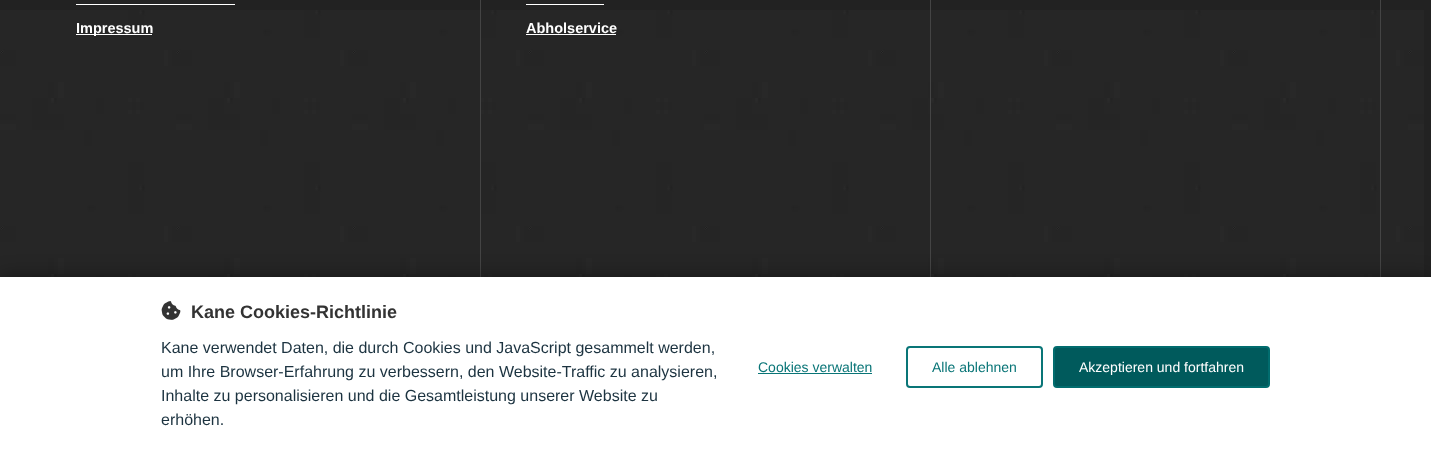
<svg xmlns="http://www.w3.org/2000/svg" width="1431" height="452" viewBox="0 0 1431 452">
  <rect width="100%" height="100%" fill="#222"/>
  <image x="0" y="10" width="1424" height="267" href="img/1.png"/>
  <path d="M480 0h1v277H480z" fill="#444"/>
  <path d="M76 4h159v1H76z" fill="#fff"/>
  <path d="M76 34h76v1H76z" fill="#fff"/>
  <path d="M930 0h1v277H930z" fill="#444"/>
  <path d="M526 4h78v1H526z" fill="#fff"/>
  <path d="M526 34h90v1H526z" fill="#fff"/>
  <path d="M1380 0h1v277H1380z" fill="#444"/>
  <path d="M0 277h1431v175H0z" fill="#00000066" filter="blur(10px)"/>
  <path d="M0 277h1431v175H0z" fill="#fff"/>
  <image x="161" y="301" width="20" height="19" href="img/2.png"/>
  <path d="M758 373h114v1H758z" fill="#097577"/>
  <rect x="907" y="347" width="135" height="40" rx="3" fill="none" stroke="#097577" stroke-width="2"/>
  <rect x="1054" y="347" width="215" height="40" rx="3" fill="#005a5c" stroke="#016c6e" stroke-width="2"/>
  <g font-family="Liberation Sans" font-size="14.5" font-weight="bold" fill="#fff">
    <text x="76" y="33">Impressum</text>
    <text x="526" y="33">Abholservice</text>
  </g>
  <text x="191" y="318" font-family="Liberation Sans" font-size="18" font-weight="bold" fill="#333">Kane Cookies-Richtlinie</text>
  <g font-family="Liberation Sans" font-size="16" fill="#1c3340">
    <text x="161" y="353">Kane verwendet Daten, die durch Cookies und JavaScript gesammelt werden,</text>
    <text x="161" y="377">um Ihre Browser-Erfahrung zu verbessern, den Website-Traffic zu analysieren,</text>
    <text x="161" y="401">Inhalte zu personalisieren und die Gesamtleistung unserer Website zu</text>
    <text x="161" y="425">erhöhen.</text>
  </g>
  <g font-family="Liberation Sans" font-size="14" fill="#097577">
    <text x="758" y="372">Cookies verwalten</text>
    <text x="932" y="372">Alle ablehnen</text>
  </g>
  <text x="1079" y="372" font-family="Liberation Sans" font-size="14" fill="#fff">Akzeptieren und fortfahren</text>
</svg>
